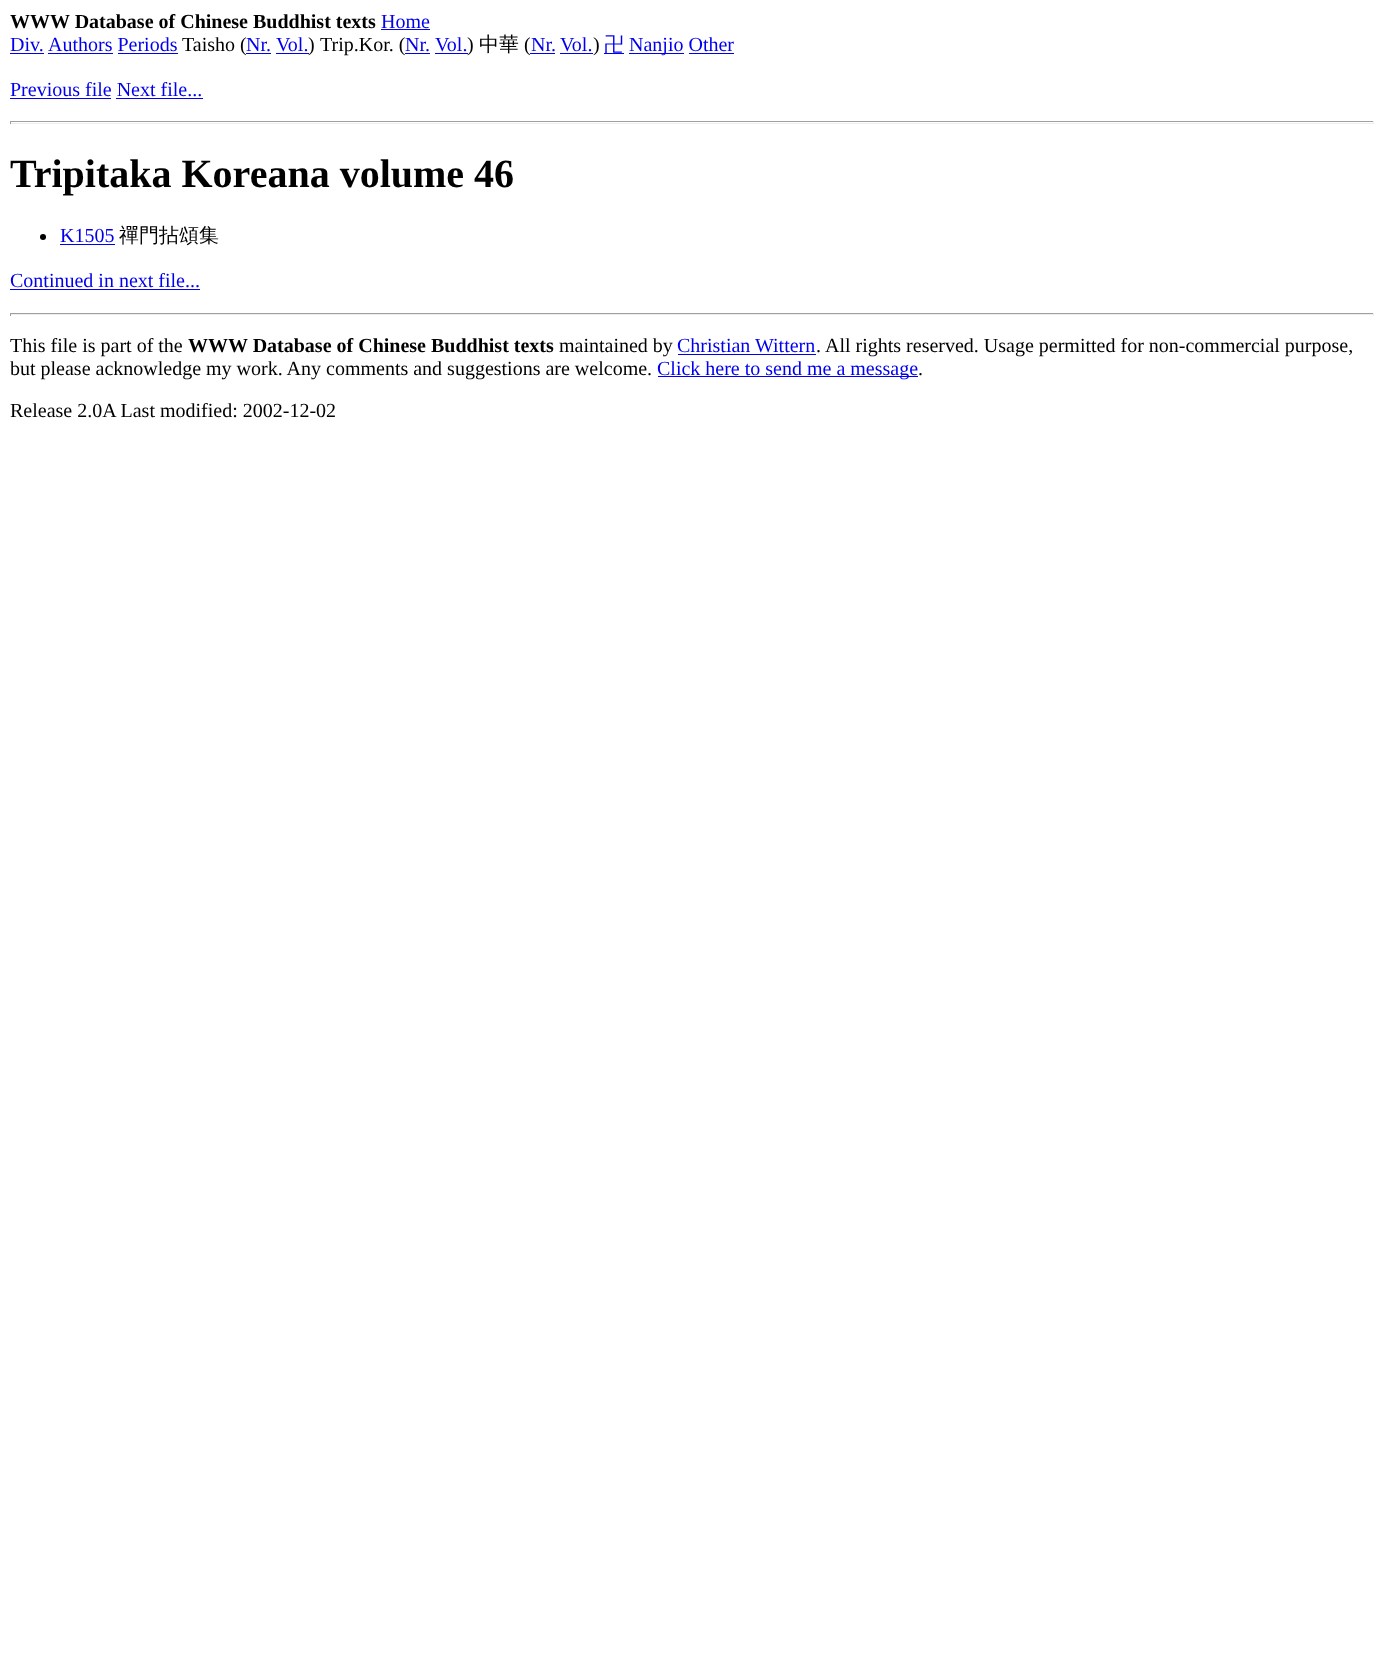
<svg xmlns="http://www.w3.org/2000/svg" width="1383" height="1679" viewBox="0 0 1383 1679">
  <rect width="100%" height="100%" fill="#fff"/>
  <path d="M381 29h49v1H381z" fill="#00e"/>
  <path d="M10 53h34v1H10z" fill="#00e"/>
  <path d="M48 53h65v1H48z" fill="#00e"/>
  <path d="M246 53h25v1H246z" fill="#00e"/>
  <path d="M276 53h33v1H276z" fill="#00e"/>
  <path d="M405 53h25v1H405z" fill="#00e"/>
  <path d="M435 53h33v1H435z" fill="#00e"/>
  <path d="M530 53h25v1H530z" fill="#00e"/>
  <path d="M560 53h33v1H560z" fill="#00e"/>
  <path d="M604 53h20v1H604z" fill="#00e"/>
  <path d="M629 53h55v1H629z" fill="#00e"/>
  <path d="M118 53h60v1H118z" fill="#00e"/>
  <path d="M689 53h45v1H689z" fill="#00e"/>
  <path d="M10 98h101v1H10z" fill="#00e"/>
  <path d="M116 98h87v1H116z" fill="#00e"/>
  <path d="M10 121h1364v1H10z" fill="#9f9f9f"/>
  <path d="M1373 121h1v3H1373z" fill="#eee"/>
  <path d="M10 123h1364v1H10z" fill="#eee"/>
  <path d="M10 121h1v3H10z" fill="#9f9f9f"/>
  <circle cx="43" cy="237" r="3" fill="#000"/>
  <path d="M60 244h55v1H60z" fill="#00e"/>
  <path d="M10 289h190v1H10z" fill="#00e"/>
  <path d="M10 313h1364v1H10z" fill="#9f9f9f"/>
  <path d="M1373 313h1v3H1373z" fill="#eee"/>
  <path d="M10 314h1364v1H10z" fill="#eee"/>
  <path d="M10 313h1v3H10z" fill="#9f9f9f"/>
  <path d="M678 354h138v1H678z" fill="#00e"/>
  <path d="M658 376h260v1H658z" fill="#00e"/>
  <text x="10" y="28" font-family="Liberation Serif" font-size="20" font-weight="bold" fill="#000">WWW Database of Chinese Buddhist texts</text>
  <g font-family="Liberation Serif" font-size="20" fill="#00e">
    <text x="381" y="28">Home</text>
    <text x="10" y="51">Div.</text>
    <text x="48" y="51">Authors Periods</text>
  </g>
  <text x="182" y="51" font-family="Liberation Serif" font-size="20" fill="#000">Taisho (</text>
  <g font-family="Liberation Serif" font-size="20" fill="#00e">
    <text x="246" y="51">Nr.</text>
    <text x="276" y="51">Vol.</text>
  </g>
  <g font-family="Liberation Serif" font-size="20" fill="#000">
    <text x="308" y="51">)</text>
    <text x="320" y="51">Trip.Kor. (</text>
  </g>
  <g font-family="Liberation Serif" font-size="20" fill="#00e">
    <text x="405" y="51">Nr.</text>
    <text x="435" y="51">Vol.</text>
  </g>
  <text x="467" y="51" font-family="Liberation Serif" font-size="20" fill="#000">)</text>
  <text x="479" y="51" font-family="WenQuanYi Zen Hei" font-size="20" font-weight="500" fill="#000">中華</text>
  <text x="524" y="51" font-family="Liberation Serif" font-size="20" fill="#000">(</text>
  <g font-family="Liberation Serif" font-size="20" fill="#00e">
    <text x="531" y="51">Nr.</text>
    <text x="560" y="51">Vol.</text>
  </g>
  <text x="593" y="51" font-family="Liberation Serif" font-size="20" fill="#000">)</text>
  <text x="604" y="51" font-family="WenQuanYi Zen Hei" font-size="20" font-weight="500" fill="#00e">卍</text>
  <g font-family="Liberation Serif" font-size="20" fill="#00e">
    <text x="629" y="51">Nanjio Other</text>
    <text x="10" y="96">Previous file Next file...</text>
  </g>
  <text x="10" y="187" font-family="Liberation Serif" font-size="40" font-weight="bold" fill="#000">Tripitaka Koreana volume 46</text>
  <text x="60" y="242" font-family="Liberation Serif" font-size="20" fill="#00e">K1505</text>
  <text x="119" y="242" font-family="WenQuanYi Zen Hei" font-size="20" font-weight="500" fill="#000">禪門拈頌集</text>
  <text x="10" y="287" font-family="Liberation Serif" font-size="20" fill="#00e">Continued in next file...</text>
  <text x="10" y="352" font-family="Liberation Serif" font-size="20" fill="#000">This file is part of the</text>
  <text x="188" y="352" font-family="Liberation Serif" font-size="20" font-weight="bold" fill="#000">WWW Database of Chinese Buddhist texts</text>
  <text x="559" y="352" font-family="Liberation Serif" font-size="20" fill="#000">maintained by</text>
  <text x="677" y="352" font-family="Liberation Serif" font-size="20" fill="#00e">Christian Wittern</text>
  <g font-family="Liberation Serif" font-size="20" fill="#000">
    <text x="816" y="352">.</text>
    <text x="825" y="352">All rights reserved. Usage permitted for non-commercial purpose,</text>
    <text x="10" y="375">but please acknowledge my work. Any comments and suggestions are welcome.</text>
  </g>
  <text x="657" y="375" font-family="Liberation Serif" font-size="20" fill="#00e">Click here to send me a message</text>
  <g font-family="Liberation Serif" font-size="20" fill="#000">
    <text x="918" y="375">.</text>
    <text x="10" y="417">Release 2.0A Last modified: 2002-12-02</text>
  </g>
</svg>
